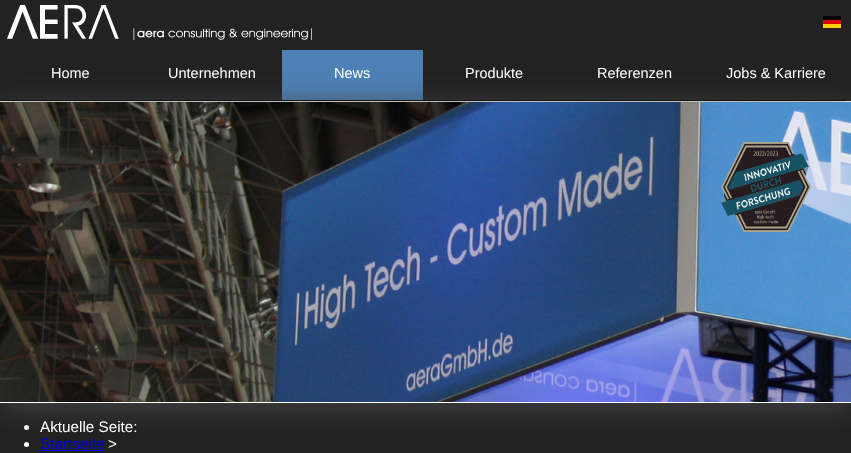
<svg xmlns="http://www.w3.org/2000/svg" width="851" height="453" viewBox="0 0 851 453">
  <rect width="100%" height="100%" fill="#222"/>
  <path d="M0 101h851v1H0z" fill="#fff"/>
  <path d="M0 100h846v1H0z" fill="#000"/>
  <path d="M282 50h141v50H282z" fill="#4d80b5"/>
  <circle cx="26.5" cy="427.5" r="2.5" fill="#fff"/>
  <circle cx="26.5" cy="444.5" r="2.5" fill="#fff"/>
  <path d="M40 450h64v1H40z" fill="#00e"/>
  <path d="M0 107h851v301H0z" fill="#444" filter="blur(15px)"/>
  <path d="M0 402h851v1H0z" fill="#fff"/>
  <image x="0" y="102" width="851" height="300" href="img/1.png"/>
  <image x="721" y="142" width="90" height="90" href="img/2.png"/>
  <image x="7" y="5" width="305" height="35" href="img/3.png"/>
  <image x="823" y="16" width="18" height="12" href="img/4.png"/>
  <g font-family="Liberation Sans" font-size="14.5" fill="#fff">
    <text x="51" y="78">Home</text>
    <text x="168" y="78">Unternehmen</text>
    <text x="334" y="78">News</text>
    <text x="465" y="78">Produkte</text>
    <text x="597" y="78">Referenzen</text>
    <text x="726" y="78">Jobs &amp; Karriere</text>
  </g>
  <text x="40" y="432" font-family="Liberation Sans" font-size="15.25" fill="#fff">Aktuelle Seite:</text>
  <text x="40" y="449" font-family="Liberation Sans" font-size="15.25" fill="#00e">Startseite</text>
  <text x="108" y="449" font-family="Liberation Sans" font-size="15.25" fill="#fff">&gt;</text>
</svg>
